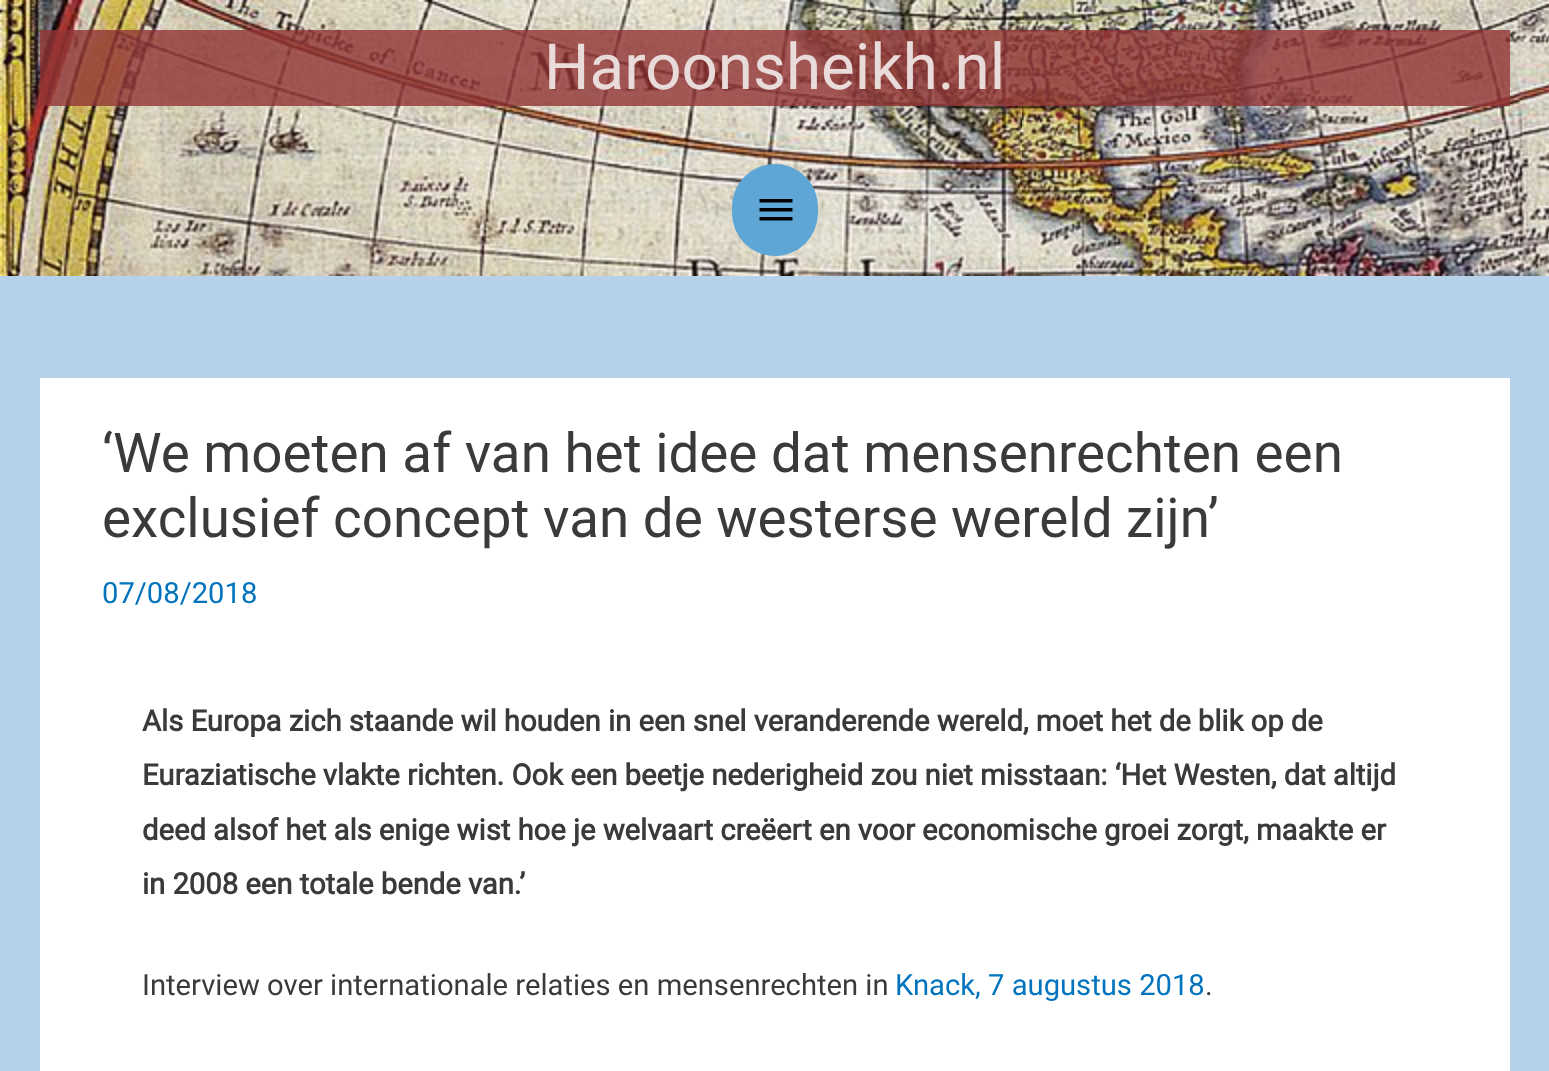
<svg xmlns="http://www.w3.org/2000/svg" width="1549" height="1071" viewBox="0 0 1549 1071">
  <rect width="100%" height="100%" fill="#b6d1ea"/>
  <image x="0" y="0" width="1549" height="276" href="img/1.png"/>
  <path d="M40 30h1470v76H40z" fill="#913434cc"/>
  <rect x="732" y="164" width="86" height="92" rx="43" fill="#5da6d5"/>
  <path d="M759.5 199H792.5V202.5H759.5ZM759.5 211.5V208H792.5V211.5ZM759.5 220.5V217H792.5V220.5Z" fill="#000"/>
  <path d="M40 378h1470v693H40z" fill="#fff"/>
  <text x="544" y="89" font-family="Roboto" font-size="63.75" fill="#eadbdb">Haroonsheikh.nl</text>
  <g font-family="Roboto" font-size="54.75" fill="#3a3a3a">
    <text x="102" y="472">‘We moeten af van het idee dat mensenrechten een</text>
    <text x="102" y="537">exclusief concept van de westerse wereld zijn’</text>
  </g>
  <text x="102" y="603" font-family="Roboto" font-size="29.2" fill="#0274be">07/08/2018</text>
  <g font-family="Roboto" font-size="29.2" font-weight="bold" fill="#3a3a3a">
    <text x="142" y="731">Als Europa zich staande wil houden in een snel veranderende wereld, moet het de blik op de</text>
    <text x="142" y="785">Euraziatische vlakte richten. Ook een beetje nederigheid zou niet misstaan: ‘Het Westen, dat altijd</text>
    <text x="142" y="840">deed alsof het als enige wist hoe je welvaart creëert en voor economische groei zorgt, maakte er</text>
    <text x="142" y="894">in 2008 een totale bende van.’</text>
  </g>
  <text x="142" y="995" font-family="Roboto" font-size="29.2" fill="#3a3a3a">Interview over internationale relaties en mensenrechten in</text>
  <text x="895" y="995" font-family="Roboto" font-size="29.2" fill="#0274be">Knack, 7 augustus 2018</text>
  <text x="1205" y="995" font-family="Roboto" font-size="29.2" fill="#3a3a3a">.</text>
</svg>
